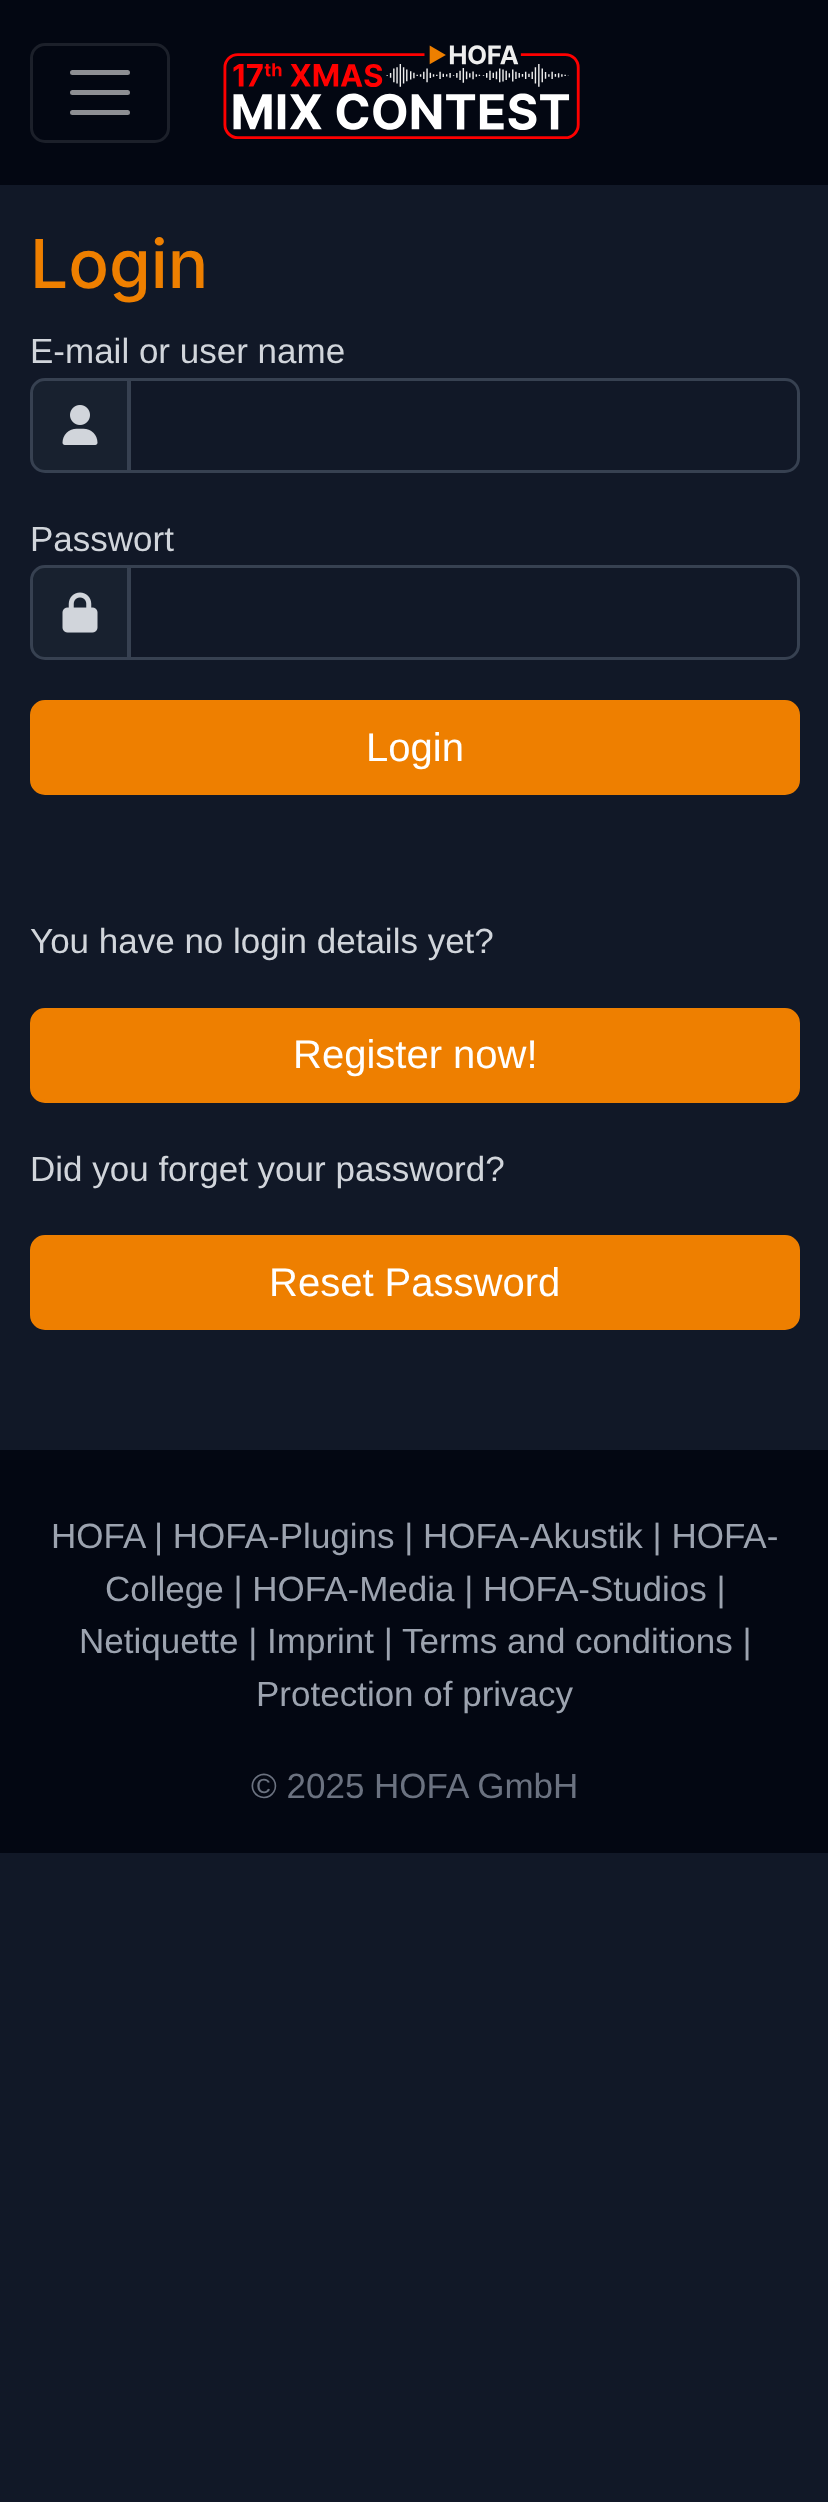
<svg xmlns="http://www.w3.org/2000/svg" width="828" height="2502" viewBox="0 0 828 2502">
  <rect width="100%" height="100%" fill="#111827"/>
  <path d="M0 0h828v185H0z" fill="#030712"/>
  <rect x="31.5" y="44.5" width="137" height="97" rx="13.5" fill="none" stroke="#1c202a" stroke-width="3"/>
  <path d="M72.5 72.5H127.5M72.5 92.5H127.5M72.5 112.5H127.5" fill="none" stroke="#8e8f94" stroke-width="5" stroke-linecap="round"/>
  <image x="223" y="45" width="357" height="94" href="img/1.png"/>
  <path d="M45 379.5H128.5V471.5H45C37.5 471.5 31.5 465.5 31.5 458V393C31.5 385.5 37.5 379.5 45 379.5Z" fill="#18212f" stroke="#374151" stroke-width="3"/>
  <image x="62" y="405" width="36" height="40" href="img/2.png"/>
  <path d="M129.5 379.5H785C792.5 379.5 798.5 385.5 798.5 393V458C798.5 465.5 792.5 471.5 785 471.5H129.5Z" fill="none" stroke="#374151" stroke-width="3"/>
  <path d="M45 566.5H128.5V658.5H45C37.5 658.5 31.5 652.5 31.5 645V580C31.5 572.5 37.5 566.5 45 566.5Z" fill="#18212f" stroke="#374151" stroke-width="3"/>
  <image x="62" y="592" width="36" height="41" href="img/3.png"/>
  <path d="M129.5 566.5H785C792.5 566.5 798.5 572.5 798.5 580V645C798.5 652.5 792.5 658.5 785 658.5H129.5Z" fill="none" stroke="#374151" stroke-width="3"/>
  <rect x="31.5" y="701.5" width="767" height="92" rx="13.5" fill="#ee7f00" stroke="#ee7f00" stroke-width="3"/>
  <rect x="31.5" y="1009.5" width="767" height="92" rx="13.5" fill="#ee7f00" stroke="#ee7f00" stroke-width="3"/>
  <rect x="31.5" y="1236.5" width="767" height="92" rx="13.5" fill="#ee7f00" stroke="#ee7f00" stroke-width="3"/>
  <path d="M0 1450h828v403H0z" fill="#030712"/>
  <text x="30" y="288" font-family="Inter" font-size="67.5" font-weight="500" fill="#ee7f00">Login</text>
  <g font-family="Liberation Sans" font-size="35" fill="#d1d5db">
    <text x="30" y="363">E-mail or user name</text>
    <text x="30" y="551">Passwort</text>
  </g>
  <text x="366" y="761" font-family="Liberation Sans" font-size="40" fill="#fff">Login</text>
  <text x="30" y="953" font-family="Liberation Sans" font-size="35" fill="#d1d5db">You have no login details yet?</text>
  <text x="293" y="1068" font-family="Liberation Sans" font-size="40" fill="#fff">Register now!</text>
  <text x="30" y="1181" font-family="Liberation Sans" font-size="35" fill="#d1d5db">Did you forget your password?</text>
  <text x="269" y="1296" font-family="Liberation Sans" font-size="40" fill="#fff">Reset Password</text>
  <g font-family="Liberation Sans" font-size="35" fill="#9ca3af">
    <text x="51" y="1548">HOFA</text>
    <text x="154" y="1548">| HOFA-Plugins | HOFA-Akustik | HOFA-</text>
    <text x="105" y="1601">College | HOFA-Media | HOFA-Studios |</text>
    <text x="79" y="1653">Netiquette | Imprint |</text>
    <text x="402" y="1653">Terms and conditions |</text>
    <text x="256" y="1706">Protection of privacy</text>
  </g>
  <text x="251" y="1798" font-family="Liberation Sans" font-size="35" fill="#6b7280">© 2025 HOFA GmbH</text>
</svg>
